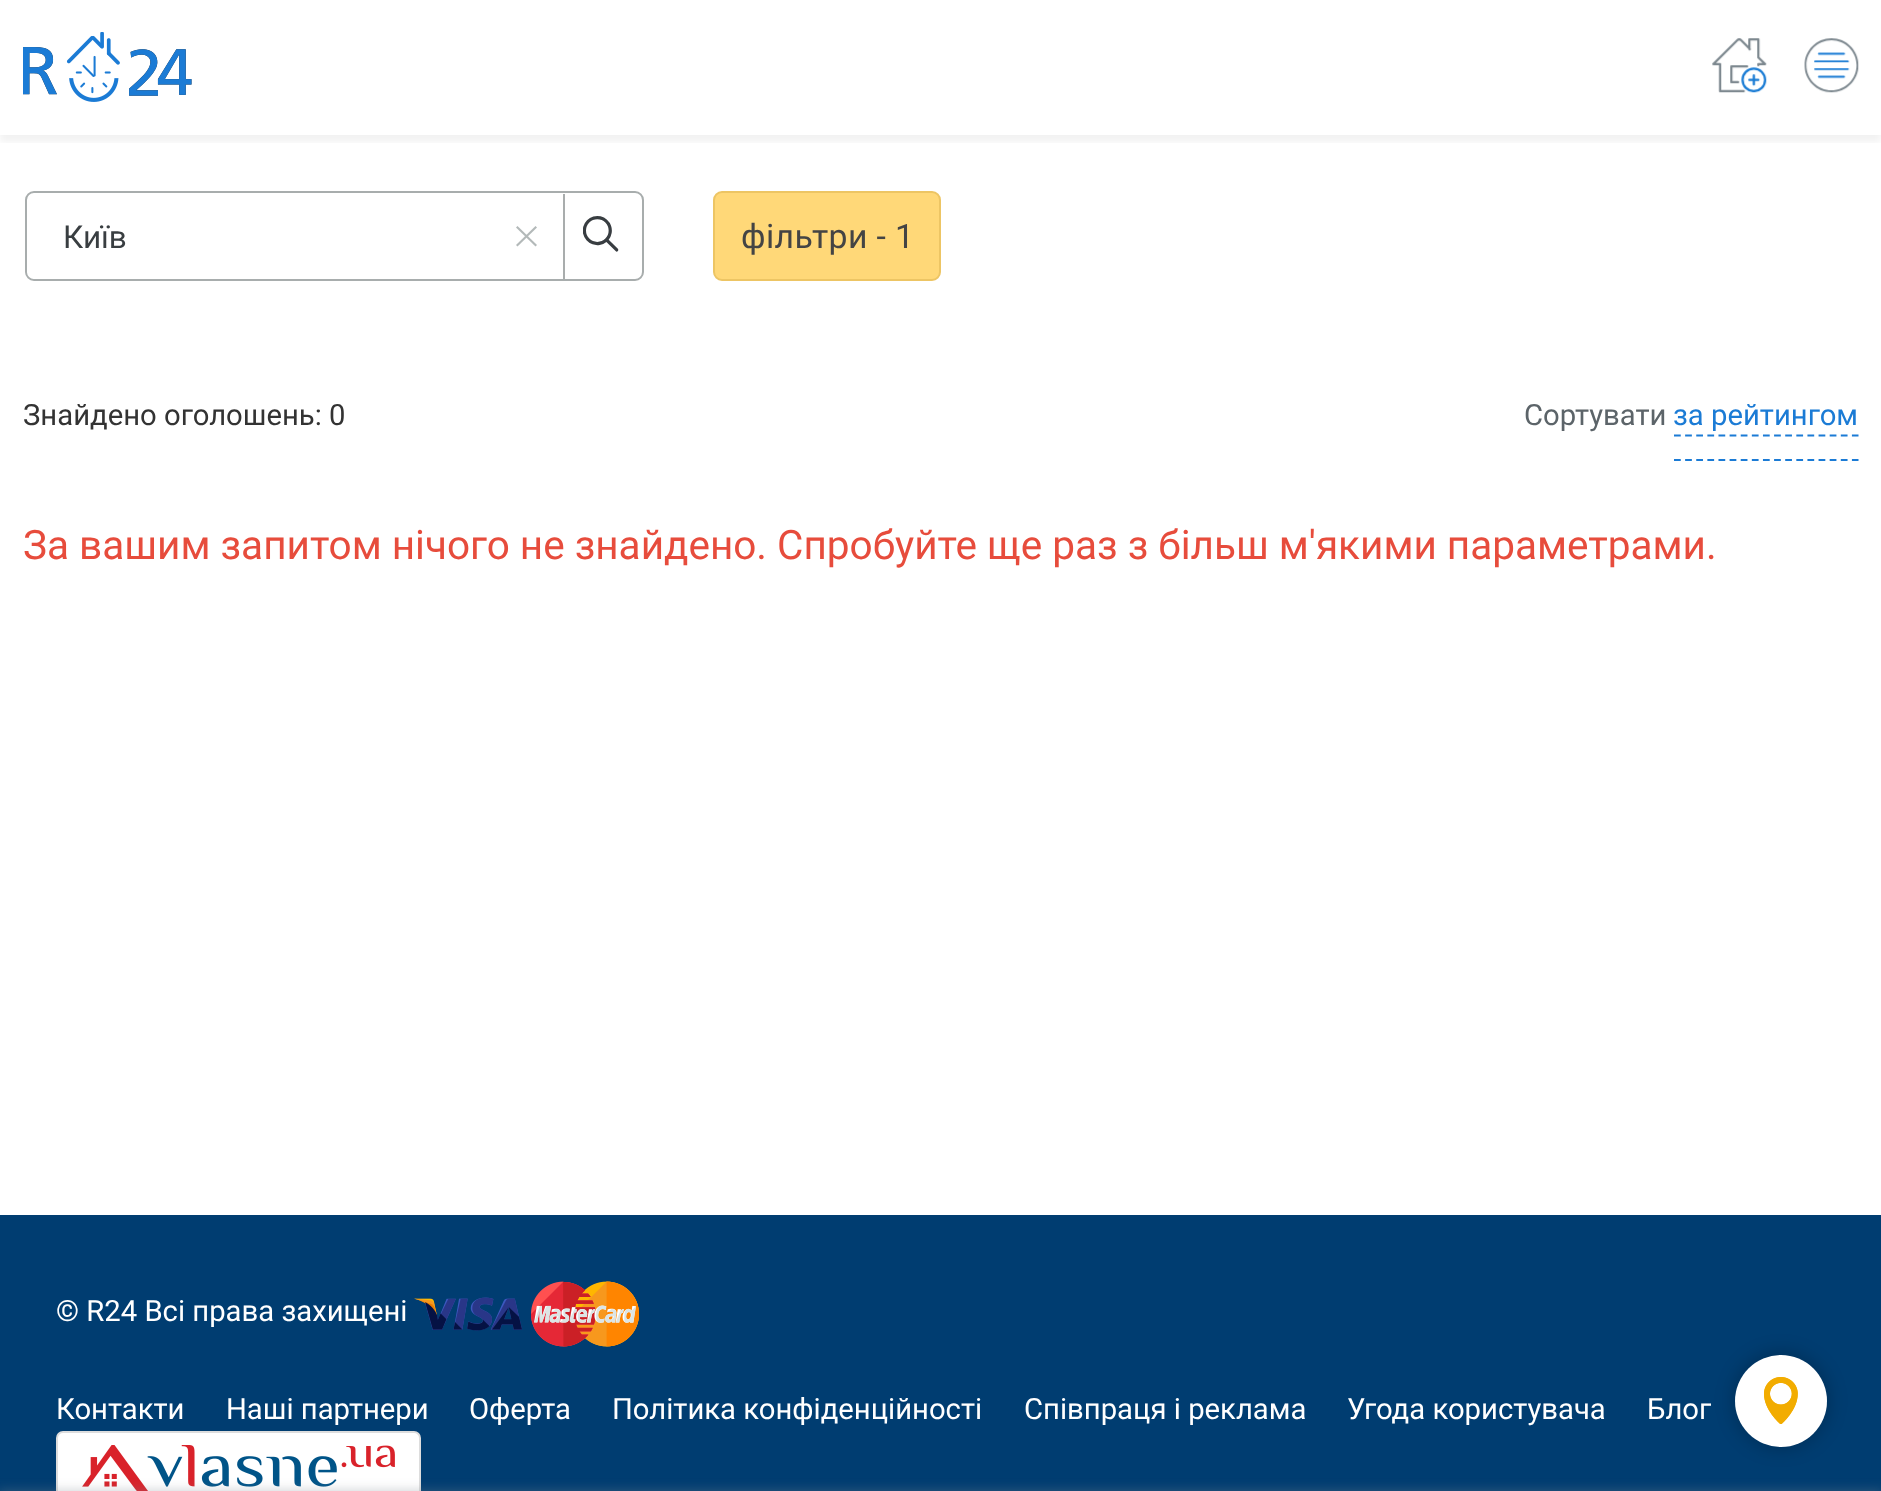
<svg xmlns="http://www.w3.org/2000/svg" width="1881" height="1491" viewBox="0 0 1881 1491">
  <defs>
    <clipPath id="clip1"><path d="M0 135h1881v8H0z"/></clipPath>
  </defs>
  <rect width="100%" height="100%" fill="#fff"/>
  <g clip-path="url(#clip1)">
    <path d="M0 7h1881v135H0z" fill="#0000000d" filter="blur(3.5px)"/>
  </g>
  <image x="23" y="32" width="169" height="70" href="img/1.png"/>
  <image x="1712" y="38" width="55" height="55" href="img/2.png"/>
  <image x="1804" y="38" width="55" height="55" href="img/3.png"/>
  <rect x="26" y="192" width="617" height="88" rx="8" fill="none" stroke="#a8adad" stroke-width="2"/>
  <rect x="27" y="194" width="614" height="85" rx="9" fill="#fff"/>
  <path d="M563 194h2v85H563z" fill="#a9adad"/>
  <path d="M516 227.5L517.5 226L537 245L535.5 246.5Z" fill="#b3b9b9"/>
  <path d="M535.5 226L537 227.5L517.5 246.5L516 245Z" fill="#b3b9b9"/>
  <image x="583" y="216" width="36" height="36" href="img/4.png"/>
  <rect x="714" y="192" width="226" height="88" rx="8" fill="#ffd878" stroke="#edc564" stroke-width="2"/>
  <path d="M1674 460H1858.5" fill="none" stroke="#1b7bd5" stroke-width="2.2" stroke-dasharray="6.75 4.37"/>
  <path d="M1674 435.5H1858.5" fill="none" stroke="#1b7bd5" stroke-width="2.2" stroke-dasharray="6.75 4.37"/>
  <path d="M0 1215h1881v276H0z" fill="#003d71"/>
  <rect x="1733" y="1352" width="96" height="97" rx="48" fill="#00000036" filter="blur(9px)"/>
  <circle cx="1781" cy="1401" r="46" fill="#fff"/>
  <image x="1764" y="1377" width="34" height="47" href="img/5.png"/>
  <rect x="57" y="1432" width="363" height="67" rx="6" fill="#fff" stroke="#ddd" stroke-width="2"/>
  <image x="82" y="1445" width="313" height="46" href="img/8.png"/>
  <path d="M-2 1490h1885v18H-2z" fill="#7d888f59" filter="blur(5.5px)"/>
  <image x="414" y="1297" width="108" height="34" href="img/6.png"/>
  <image x="531" y="1281" width="108" height="66" href="img/7.png"/>
  <text x="63" y="248" font-family="Roboto" font-size="31.5" fill="#393e41">Київ</text>
  <text x="741" y="248" font-family="Roboto" font-size="33.75" letter-spacing="0.4" fill="#444">фільтри - 1</text>
  <text x="23" y="425" font-family="Roboto" font-size="29.25" fill="#333">Знайдено оголошень: 0</text>
  <text x="1524" y="425" font-family="Roboto" font-size="29.25" fill="#5c6469">Сортувати</text>
  <text x="1673" y="425" font-family="Roboto" font-size="29.25" fill="#1b7bd5">за рейтингом</text>
  <text x="23" y="559" font-family="Roboto" font-size="40.5" fill="#e74c3c">За вашим запитом нічого не знайдено. Спробуйте ще раз з більш м'якими параметрами.</text>
  <g font-family="Roboto" font-size="29.25" fill="#fff">
    <text x="56" y="1321">© R24 Всі права захищені</text>
    <text x="56" y="1419">Контакти</text>
    <text x="226" y="1419">Наші партнери</text>
    <text x="469" y="1419">Оферта</text>
    <text x="612" y="1419">Політика конфіденційності</text>
    <text x="1024" y="1419">Співпраця і реклама</text>
    <text x="1347" y="1419">Угода користувача</text>
    <text x="1647" y="1419">Блог</text>
  </g>
</svg>
